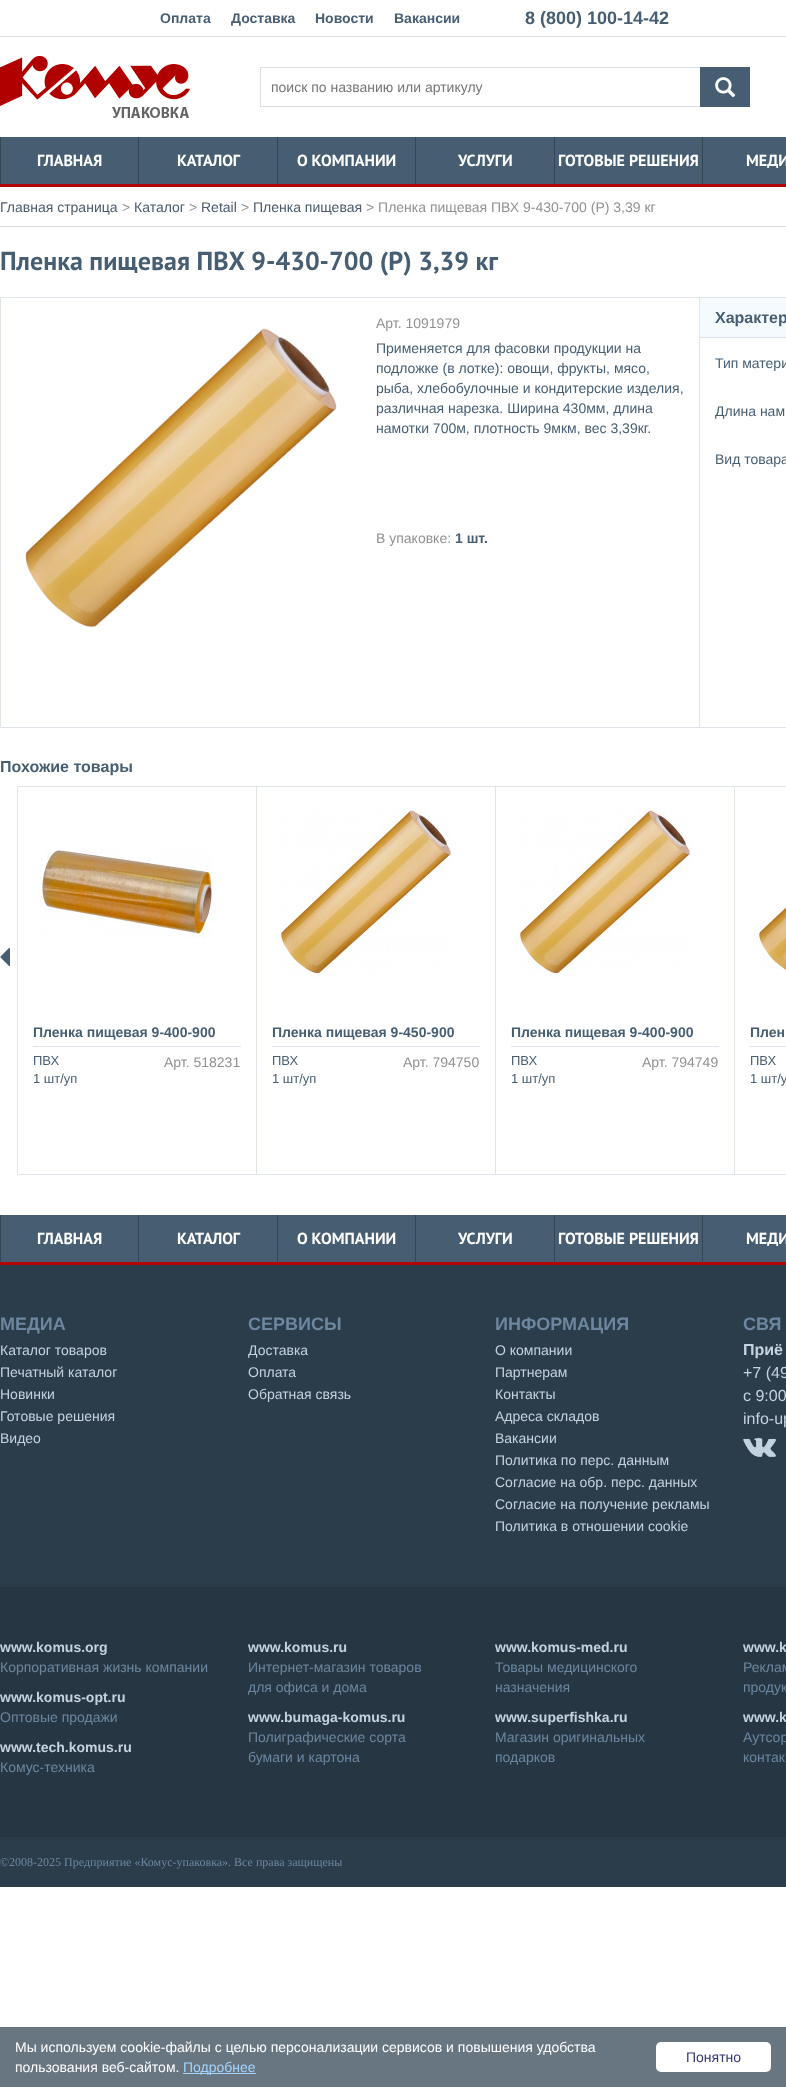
<svg xmlns="http://www.w3.org/2000/svg" width="786" height="2087" viewBox="0 0 786 2087">
  <rect width="100%" height="100%" fill="#fff"/>
  <path d="M0 36h786v1H0z" fill="#dadfe3"/>
  <image x="0" y="56" width="190" height="62" href="img/1.png"/>
  <path d="M260 67h440v1H260z" fill="#dadfe3"/>
  <path d="M260 106h440v1H260z" fill="#dadfe3"/>
  <path d="M260 67h1v40H260z" fill="#dadfe3"/>
  <path d="M700 67h50v40H700z" fill="#475e72"/>
  <image x="715" y="77" width="21" height="21" href="img/2.png"/>
  <path d="M1 137h785v47H1z" fill="#475e72"/>
  <path d="M0 184h786v3H0z" fill="#b40606"/>
  <path d="M0 137h1v47H0z" fill="#354655"/>
  <path d="M138 137h1v47H138z" fill="#354655"/>
  <path d="M277 137h1v47H277z" fill="#354655"/>
  <path d="M415 137h1v47H415z" fill="#354655"/>
  <path d="M554 137h1v47H554z" fill="#354655"/>
  <path d="M702 137h1v47H702z" fill="#354655"/>
  <path d="M0 226h786v1H0z" fill="#dcdddf"/>
  <path d="M0.5 297.5h699v430H0.5z" fill="none" stroke="#dee4e9"/>
  <image x="25" y="328" width="312" height="300" href="img/3.png"/>
  <path d="M699.5 297.5h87v430H699.5z" fill="none" stroke="#dee4e9"/>
  <path d="M700 298h86v39H700z" fill="#f5faff"/>
  <path d="M700 337h86v1H700z" fill="#dee4e9"/>
  <image x="0" y="947" width="10" height="20" href="img/4.png"/>
  <path d="M17.5 786.5h239v388H17.5z" fill="none" stroke="#dee4e9"/>
  <image x="37" y="850" width="176" height="88" href="img/5.png"/>
  <path d="M33 1046h208v1H33z" fill="#dee4e9"/>
  <path d="M256.5 786.5h239v388H256.5z" fill="none" stroke="#dee4e9"/>
  <image x="276" y="810" width="176" height="168" href="img/6.png"/>
  <path d="M272 1046h208v1H272z" fill="#dee4e9"/>
  <path d="M495.5 786.5h239v388H495.5z" fill="none" stroke="#dee4e9"/>
  <image x="515" y="810" width="176" height="168" href="img/6.png"/>
  <path d="M511 1046h208v1H511z" fill="#dee4e9"/>
  <path d="M734.5 786.5h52v388H734.5z" fill="none" stroke="#dee4e9"/>
  <image x="754" y="906" width="32" height="64" href="img/7.png"/>
  <path d="M750 1046h36v1H750z" fill="#dee4e9"/>
  <path d="M1 1215h785v47H1z" fill="#475e72"/>
  <path d="M0 1262h786v3H0z" fill="#b40606"/>
  <path d="M0 1215h1v47H0z" fill="#354655"/>
  <path d="M138 1215h1v47H138z" fill="#354655"/>
  <path d="M277 1215h1v47H277z" fill="#354655"/>
  <path d="M415 1215h1v47H415z" fill="#354655"/>
  <path d="M554 1215h1v47H554z" fill="#354655"/>
  <path d="M702 1215h1v47H702z" fill="#354655"/>
  <path d="M0 1265h786v622H0z" fill="#2b3c4b"/>
  <image x="743" y="1438" width="33" height="19" href="img/8.png"/>
  <path d="M0 1587h786v250H0z" fill="#273643"/>
  <path d="M0 2027h786v60H0z" fill="#687682"/>
  <path d="M183 2073h73v1H183z" fill="#a2d4ff"/>
  <rect x="656" y="2042" width="115" height="30" rx="5" fill="#fff"/>
  <g font-family="Liberation Sans" font-size="14" font-weight="bold" fill="#475e72">
    <text x="160" y="23">Оплата</text>
    <text x="231" y="23">Доставка</text>
    <text x="315" y="23">Новости</text>
    <text x="394" y="23">Вакансии</text>
  </g>
  <text x="525" y="24" font-family="Liberation Sans" font-size="18" font-weight="bold" fill="#475e72">8 (800) 100-14-42</text>
  <text x="271" y="92" font-family="Liberation Sans" font-size="14" fill="#757575">поиск по названию или артикулу</text>
  <g font-family="PT Sans" font-size="16" font-weight="bold" fill="#fff">
    <text x="37" y="166">ГЛАВНАЯ</text>
    <text x="177" y="166">КАТАЛОГ</text>
    <text x="297" y="166">О КОМПАНИИ</text>
    <text x="458" y="166">УСЛУГИ</text>
    <text x="558" y="166">ГОТОВЫЕ РЕШЕНИЯ</text>
    <text x="746" y="166">МЕДИ</text>
  </g>
  <text x="0" y="212" font-family="Liberation Sans" font-size="14" fill="#4b5b6b">Главная страница</text>
  <text x="122" y="212" font-family="Liberation Sans" font-size="14" fill="#919191">&gt;</text>
  <text x="134" y="212" font-family="Liberation Sans" font-size="14" fill="#4b5b6b">Каталог</text>
  <text x="189" y="212" font-family="Liberation Sans" font-size="14" fill="#919191">&gt;</text>
  <text x="201" y="212" font-family="Liberation Sans" font-size="14" fill="#4b5b6b">Retail</text>
  <text x="241" y="212" font-family="Liberation Sans" font-size="14" fill="#919191">&gt;</text>
  <text x="253" y="212" font-family="Liberation Sans" font-size="14" fill="#4b5b6b">Пленка пищевая</text>
  <text x="366" y="212" font-family="Liberation Sans" font-size="14" fill="#919191">&gt; Пленка пищевая ПВХ 9-430-700 (P) 3,39 кг</text>
  <text x="0" y="270" font-family="PT Sans" font-size="26" font-weight="bold" fill="#475e72">Пленка пищевая ПВХ 9-430-700 (P) 3,39 кг</text>
  <text x="376" y="328" font-family="Liberation Sans" font-size="14" fill="#919191">Арт. 1091979</text>
  <g font-family="Liberation Sans" font-size="14" fill="#475e72">
    <text x="376" y="353">Применяется для фасовки продукции на</text>
    <text x="376" y="373">подложке (в лотке): овощи, фрукты, мясо,</text>
    <text x="376" y="393">рыба, хлебобулочные и кондитерские изделия,</text>
    <text x="376" y="413">различная нарезка. Ширина 430мм, длина</text>
    <text x="376" y="433">намотки 700м, плотность 9мкм, вес 3,39кг.</text>
  </g>
  <text x="376" y="543" font-family="Liberation Sans" font-size="14" fill="#919191">В упаковке:</text>
  <text x="455" y="543" font-family="Liberation Sans" font-size="14" font-weight="bold" fill="#475e72">1 шт.</text>
  <text x="715" y="323" font-family="Liberation Sans" font-size="16" font-weight="bold" fill="#475e72">Характер</text>
  <g font-family="Liberation Sans" font-size="14" fill="#475e72">
    <text x="715" y="368">Тип матери</text>
    <text x="715" y="416">Длина нам</text>
    <text x="715" y="464">Вид товара</text>
  </g>
  <text x="0" y="772" font-family="Liberation Sans" font-size="16" font-weight="bold" fill="#475e72">Похожие товары</text>
  <text x="33" y="1037" font-family="Liberation Sans" font-size="14" font-weight="bold" fill="#475e72">Пленка пищевая 9-400-900</text>
  <g font-family="Liberation Sans" font-size="13" fill="#475e72">
    <text x="33" y="1065">ПВХ</text>
    <text x="33" y="1083">1 шт/уп</text>
  </g>
  <text x="164" y="1067" font-family="Liberation Sans" font-size="14" fill="#919191">Арт. 518231</text>
  <text x="272" y="1037" font-family="Liberation Sans" font-size="14" font-weight="bold" fill="#475e72">Пленка пищевая 9-450-900</text>
  <g font-family="Liberation Sans" font-size="13" fill="#475e72">
    <text x="272" y="1065">ПВХ</text>
    <text x="272" y="1083">1 шт/уп</text>
  </g>
  <text x="403" y="1067" font-family="Liberation Sans" font-size="14" fill="#919191">Арт. 794750</text>
  <text x="511" y="1037" font-family="Liberation Sans" font-size="14" font-weight="bold" fill="#475e72">Пленка пищевая 9-400-900</text>
  <g font-family="Liberation Sans" font-size="13" fill="#475e72">
    <text x="511" y="1065">ПВХ</text>
    <text x="511" y="1083">1 шт/уп</text>
  </g>
  <text x="642" y="1067" font-family="Liberation Sans" font-size="14" fill="#919191">Арт. 794749</text>
  <text x="750" y="1037" font-family="Liberation Sans" font-size="14" font-weight="bold" fill="#475e72">Плен</text>
  <g font-family="Liberation Sans" font-size="13" fill="#475e72">
    <text x="750" y="1065">ПВХ</text>
    <text x="750" y="1083">1 шт/у</text>
  </g>
  <g font-family="PT Sans" font-size="16" font-weight="bold" fill="#fff">
    <text x="37" y="1244">ГЛАВНАЯ</text>
    <text x="177" y="1244">КАТАЛОГ</text>
    <text x="297" y="1244">О КОМПАНИИ</text>
    <text x="458" y="1244">УСЛУГИ</text>
    <text x="558" y="1244">ГОТОВЫЕ РЕШЕНИЯ</text>
    <text x="746" y="1244">МЕДИ</text>
  </g>
  <text x="0" y="1330" font-family="Liberation Sans" font-size="18" font-weight="bold" fill="#6c879f">МЕДИА</text>
  <g font-family="Liberation Sans" font-size="14" fill="#c5d3df">
    <text x="0" y="1355">Каталог товаров</text>
    <text x="0" y="1377">Печатный каталог</text>
    <text x="0" y="1399">Новинки</text>
    <text x="0" y="1421">Готовые решения</text>
    <text x="0" y="1443">Видео</text>
  </g>
  <text x="248" y="1330" font-family="Liberation Sans" font-size="18" font-weight="bold" fill="#6c879f">СЕРВИСЫ</text>
  <g font-family="Liberation Sans" font-size="14" fill="#c5d3df">
    <text x="248" y="1355">Доставка</text>
    <text x="248" y="1377">Оплата</text>
    <text x="248" y="1399">Обратная связь</text>
  </g>
  <text x="495" y="1330" font-family="Liberation Sans" font-size="18" font-weight="bold" fill="#6c879f">ИНФОРМАЦИЯ</text>
  <g font-family="Liberation Sans" font-size="14" fill="#c5d3df">
    <text x="495" y="1355">О компании</text>
    <text x="495" y="1377">Партнерам</text>
    <text x="495" y="1399">Контакты</text>
    <text x="495" y="1421">Адреса складов</text>
    <text x="495" y="1443">Вакансии</text>
    <text x="495" y="1465">Политика по перс. данным</text>
    <text x="495" y="1487">Согласие на обр. перс. данных</text>
    <text x="495" y="1509">Согласие на получение рекламы</text>
    <text x="495" y="1531">Политика в отношении cookie</text>
  </g>
  <text x="743" y="1330" font-family="Liberation Sans" font-size="18" font-weight="bold" fill="#6c879f">СВЯ</text>
  <text x="743" y="1355" font-family="Liberation Sans" font-size="16" font-weight="bold" fill="#c5d3df">Приё</text>
  <g font-family="Liberation Sans" font-size="16" fill="#c5d3df">
    <text x="743" y="1378">+7 (49</text>
    <text x="743" y="1401">с 9:00</text>
    <text x="743" y="1424">info-up</text>
  </g>
  <text x="0" y="1652" font-family="Liberation Sans" font-size="14" font-weight="bold" fill="#c5d3df">www.komus.org</text>
  <text x="0" y="1672" font-family="Liberation Sans" font-size="14" fill="#6c879f">Корпоративная жизнь компании</text>
  <text x="0" y="1702" font-family="Liberation Sans" font-size="14" font-weight="bold" fill="#c5d3df">www.komus-opt.ru</text>
  <text x="0" y="1722" font-family="Liberation Sans" font-size="14" fill="#6c879f">Оптовые продажи</text>
  <text x="0" y="1752" font-family="Liberation Sans" font-size="14" font-weight="bold" fill="#c5d3df">www.tech.komus.ru</text>
  <text x="0" y="1772" font-family="Liberation Sans" font-size="14" fill="#6c879f">Комус-техника</text>
  <text x="248" y="1652" font-family="Liberation Sans" font-size="14" font-weight="bold" fill="#c5d3df">www.komus.ru</text>
  <g font-family="Liberation Sans" font-size="14" fill="#6c879f">
    <text x="248" y="1672">Интернет-магазин товаров</text>
    <text x="248" y="1692">для офиса и дома</text>
  </g>
  <text x="248" y="1722" font-family="Liberation Sans" font-size="14" font-weight="bold" fill="#c5d3df">www.bumaga-komus.ru</text>
  <g font-family="Liberation Sans" font-size="14" fill="#6c879f">
    <text x="248" y="1742">Полиграфические сорта</text>
    <text x="248" y="1762">бумаги и картона</text>
  </g>
  <text x="495" y="1652" font-family="Liberation Sans" font-size="14" font-weight="bold" fill="#c5d3df">www.komus-med.ru</text>
  <g font-family="Liberation Sans" font-size="14" fill="#6c879f">
    <text x="495" y="1672">Товары медицинского</text>
    <text x="495" y="1692">назначения</text>
  </g>
  <text x="495" y="1722" font-family="Liberation Sans" font-size="14" font-weight="bold" fill="#c5d3df">www.superfishka.ru</text>
  <g font-family="Liberation Sans" font-size="14" fill="#6c879f">
    <text x="495" y="1742">Магазин оригинальных</text>
    <text x="495" y="1762">подарков</text>
  </g>
  <text x="743" y="1652" font-family="Liberation Sans" font-size="14" font-weight="bold" fill="#c5d3df">www.k</text>
  <g font-family="Liberation Sans" font-size="14" fill="#6c879f">
    <text x="743" y="1672">Реклам</text>
    <text x="743" y="1692">продук</text>
  </g>
  <text x="743" y="1722" font-family="Liberation Sans" font-size="14" font-weight="bold" fill="#c5d3df">www.k</text>
  <g font-family="Liberation Sans" font-size="14" fill="#6c879f">
    <text x="743" y="1742">Аутсор</text>
    <text x="743" y="1762">контак</text>
  </g>
  <text x="0" y="1866" font-family="Liberation Serif" font-size="12" fill="#6c879f">©2008-2025 Предприятие «Комус-упаковка». Все права защищены</text>
  <g font-family="Liberation Sans" font-size="14" fill="#fff">
    <text x="15" y="2052">Мы используем cookie-файлы с целью персонализации сервисов и повышения удобства</text>
    <text x="15" y="2072">пользования веб-сайтом.</text>
  </g>
  <text x="183" y="2072" font-family="Liberation Sans" font-size="14" fill="#a2d4ff">Подробнее</text>
  <text x="686" y="2062" font-family="Liberation Sans" font-size="14" fill="#343772">Понятно</text>
</svg>
